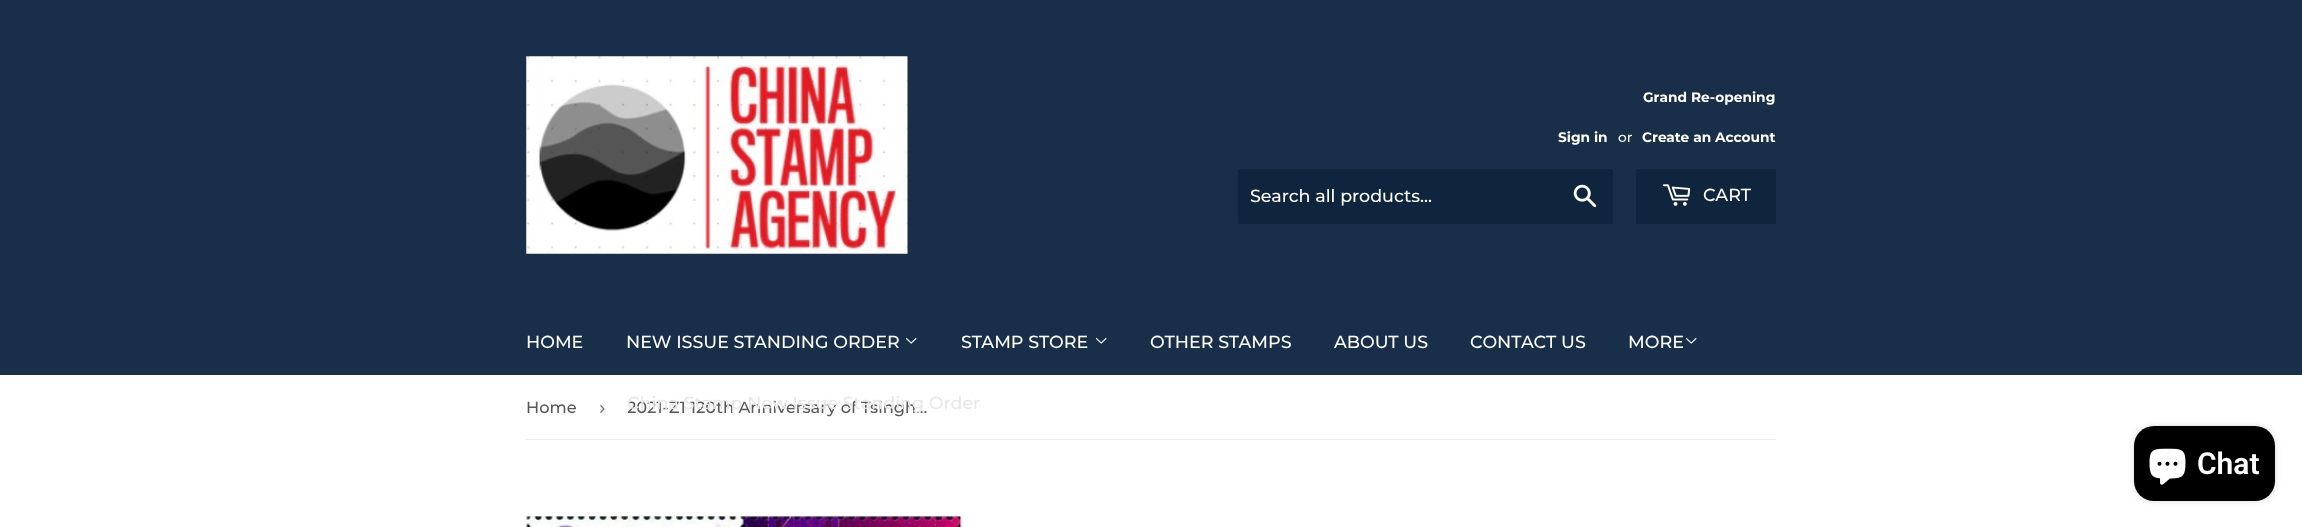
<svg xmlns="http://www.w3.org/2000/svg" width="2302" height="527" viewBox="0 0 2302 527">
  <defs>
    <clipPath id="clip1"><path d="M628 375h312v64H628z"/></clipPath>
  </defs>
  <rect width="100%" height="100%" fill="#fff"/>
  <path d="M0 0h2302v375H0z" fill="#182e49"/>
  <image x="526" y="56" width="382" height="198" href="img/1.png"/>
  <rect x="1238" y="169" width="375" height="55" rx="2.5" fill="#0f243d"/>
  <image x="1573" y="184" width="24" height="24" href="img/2.png"/>
  <rect x="1636" y="169" width="140" height="55" rx="2.5" fill="#0f243d"/>
  <image x="1662" y="184" width="29" height="22" href="img/3.png"/>
  <image x="905" y="337" width="12" height="7" href="img/4.png"/>
  <image x="1095" y="337" width="12" height="7" href="img/4.png"/>
  <image x="1685" y="337" width="12" height="7" href="img/4.png"/>
  <path d="M526 439h1250v1H526z" fill="#ececec"/>
  <image x="526" y="515" width="436" height="12" href="img/5.png"/>
  <rect x="2134" y="426" width="141" height="75" rx="20" fill="#00000026" filter="blur(3px)"/>
  <rect x="2134" y="426" width="141" height="75" rx="20" fill="#000"/>
  <image x="2149" y="448" width="37" height="37" href="img/6.png"/>
  <g font-family="Montserrat" font-size="13.75" font-weight="bold" fill="#fff">
    <text x="1643" y="102">Grand Re-opening</text>
    <text x="1558" y="142">Sign in</text>
  </g>
  <text x="1618" y="142" font-family="Montserrat" font-size="13.75" font-weight="500" fill="#fff">or</text>
  <text x="1642" y="142" font-family="Montserrat" font-size="13.75" font-weight="bold" fill="#fff">Create an Account</text>
  <g font-family="Montserrat" font-size="17.5" font-weight="500" fill="#fff">
    <text x="1250" y="202">Search all products...</text>
    <text x="1703" y="201">CART</text>
    <text x="526" y="348">HOME</text>
    <text x="626" y="348">NEW ISSUE STANDING ORDER</text>
    <text x="961" y="348">STAMP STORE</text>
    <text x="1150" y="348">OTHER STAMPS</text>
    <text x="1334" y="348">ABOUT US</text>
    <text x="1470" y="348">CONTACT US</text>
    <text x="1628" y="348">MORE</text>
  </g>
  <text x="526" y="413" font-family="Montserrat" font-size="16.25" font-weight="500" fill="#585858">Home</text>
  <text x="599" y="414" font-family="Liberation Sans" font-size="19" fill="#767676">›</text>
  <g clip-path="url(#clip1)">
    <text x="627" y="413" font-family="Montserrat" font-size="16.25" font-weight="500" fill="#585858">2021-Z1 120th Anniversary of Tsingh…</text>
  </g>
  <text x="627" y="409" font-family="Montserrat" font-size="17.5" font-weight="500" fill="#e7e7e7">China Stamp New Issue Standing Order</text>
  <text x="2197" y="474" font-family="Roboto" font-size="30" font-weight="600" fill="#fff">Chat</text>
</svg>
